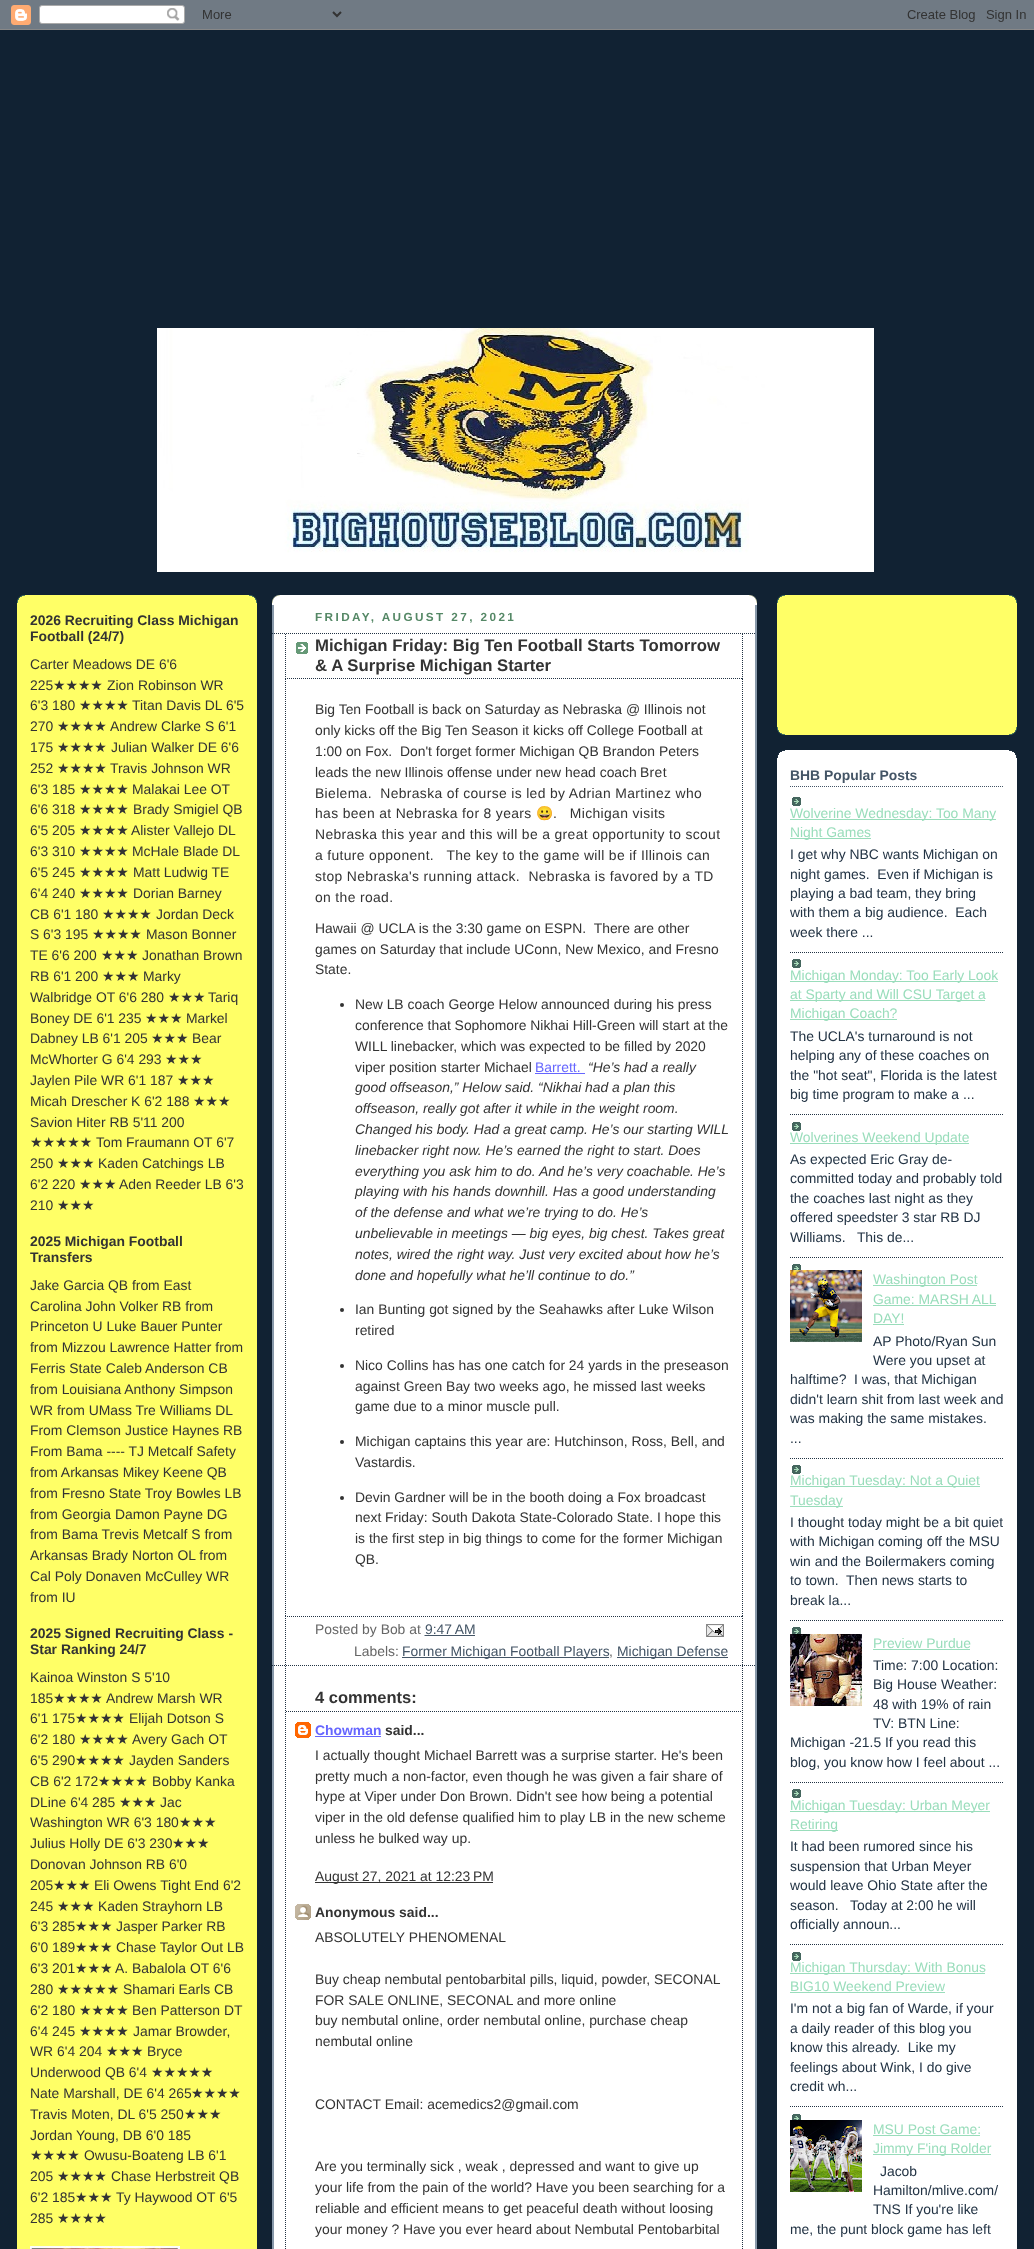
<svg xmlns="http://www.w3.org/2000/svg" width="1034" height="2249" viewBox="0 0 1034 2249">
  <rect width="100%" height="100%" fill="#123"/>
  <image x="0" y="0" width="1034" height="30" href="img/1.png"/>
  <image x="157" y="328" width="717" height="244" href="img/2.png"/>
  <path d="M17 595h240v1654H17z" fill="#ff6"/>
  <image x="17" y="595" width="240" height="8" href="img/3.png"/>
  <image x="30" y="2246" width="150" height="3" href="img/4.png"/>
  <path d="M272 595h485v1654H272z" fill="#fff"/>
  <image x="272" y="595" width="485" height="8" href="img/5.png"/>
  <image x="272" y="605" width="485" height="1644" href="img/6.png"/>
  <path d="M272 633.5H756" fill="none" stroke="#234" stroke-dasharray="1 1"/>
  <path d="M272 1665.5H756" fill="none" stroke="#234" stroke-dasharray="1 1"/>
  <image x="296" y="642" width="12" height="12" href="img/7.png"/>
  <path d="M742.5 634V679" fill="none" stroke="#234" stroke-dasharray="1 1"/>
  <path d="M285 678.5H743" fill="none" stroke="#234" stroke-dasharray="1 1"/>
  <path d="M285.5 634V679" fill="none" stroke="#234" stroke-dasharray="1 1"/>
  <path d="M742.5 679V1616" fill="none" stroke="#234" stroke-dasharray="1 1"/>
  <path d="M285.5 679V1616" fill="none" stroke="#234" stroke-dasharray="1 1"/>
  <circle cx="342" cy="1005" r="2" fill="#333"/>
  <path d="M535 1073h50v1H535z" fill="#66f"/>
  <circle cx="342" cy="1310" r="2" fill="#333"/>
  <circle cx="342" cy="1366" r="2" fill="#333"/>
  <circle cx="342" cy="1442" r="2" fill="#333"/>
  <circle cx="342" cy="1498" r="2" fill="#333"/>
  <path d="M285 1616.5H743" fill="none" stroke="#234" stroke-dasharray="1 1"/>
  <path d="M742.5 1616V1665" fill="none" stroke="#234" stroke-dasharray="1 1"/>
  <path d="M285.5 1616V1665" fill="none" stroke="#234" stroke-dasharray="1 1"/>
  <path d="M424.5 1635.5H475" fill="none" stroke="#456" stroke-dasharray="1 1"/>
  <path d="M425 1635h50v1H425z" fill="#456"/>
  <image x="706" y="1624" width="18" height="13" href="img/8.png"/>
  <path d="M402 1657h207v1H402z" fill="#456"/>
  <path d="M617 1657h111v1H617z" fill="#456"/>
  <path d="M742.5 1666V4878" fill="none" stroke="#234" stroke-dasharray="1 1"/>
  <path d="M285.5 1666V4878" fill="none" stroke="#234" stroke-dasharray="1 1"/>
  <path d="M286 1711.5H742" fill="none" stroke="#234" stroke-dasharray="1 1"/>
  <image x="295" y="1722" width="16" height="16" href="img/9.png"/>
  <path d="M315 1736h66v1H315z" fill="#66f"/>
  <path d="M315 1882h178v1H315z" fill="#333"/>
  <image x="295" y="1904" width="16" height="16" href="img/10.png"/>
  <path d="M777 595h240v140H777z" fill="#ff6"/>
  <image x="777" y="727" width="240" height="8" href="img/11.png"/>
  <image x="777" y="595" width="240" height="8" href="img/3.png"/>
  <path d="M777 750h240v1499H777z" fill="#fff"/>
  <image x="777" y="750" width="240" height="8" href="img/12.png"/>
  <path d="M790 786.5H1004" fill="none" stroke="#456" stroke-dasharray="1 1"/>
  <image x="792" y="797" width="9" height="9" href="img/13.png"/>
  <path d="M790 952.5H1004" fill="none" stroke="#234" stroke-dasharray="1 1"/>
  <path d="M790 819h206v1H790z" fill="#9db"/>
  <path d="M790 838h81v1H790z" fill="#9db"/>
  <image x="792" y="959" width="9" height="9" href="img/13.png"/>
  <path d="M790 1114.5H1004" fill="none" stroke="#234" stroke-dasharray="1 1"/>
  <path d="M790 981h208v1H790z" fill="#9db"/>
  <path d="M790 1000h195v1H790z" fill="#9db"/>
  <path d="M790 1019h107v1H790z" fill="#9db"/>
  <image x="792" y="1122" width="9" height="9" href="img/13.png"/>
  <path d="M790 1257.5H1004" fill="none" stroke="#234" stroke-dasharray="1 1"/>
  <path d="M790 1143h179v1H790z" fill="#9db"/>
  <image x="792" y="1264" width="9" height="6" href="img/14.png"/>
  <path d="M790 1458.5H1004" fill="none" stroke="#234" stroke-dasharray="1 1"/>
  <image x="790" y="1270" width="72" height="72" href="img/15.png"/>
  <path d="M873 1285h104v1H873z" fill="#9db"/>
  <path d="M873 1305h123v1H873z" fill="#9db"/>
  <path d="M873 1324h31v1H873z" fill="#9db"/>
  <image x="792" y="1465" width="9" height="9" href="img/13.png"/>
  <path d="M790 1620.5H1004" fill="none" stroke="#234" stroke-dasharray="1 1"/>
  <path d="M790 1486h190v1H790z" fill="#9db"/>
  <path d="M790 1506h53v1H790z" fill="#9db"/>
  <image x="792" y="1627" width="9" height="7" href="img/16.png"/>
  <path d="M790 1782.5H1004" fill="none" stroke="#234" stroke-dasharray="1 1"/>
  <image x="790" y="1634" width="72" height="72" href="img/17.png"/>
  <path d="M873 1649h97v1H873z" fill="#9db"/>
  <image x="792" y="1789" width="9" height="9" href="img/13.png"/>
  <path d="M790 1944.5H1004" fill="none" stroke="#234" stroke-dasharray="1 1"/>
  <path d="M790 1811h200v1H790z" fill="#9db"/>
  <path d="M790 1830h48v1H790z" fill="#9db"/>
  <image x="792" y="1952" width="9" height="9" href="img/13.png"/>
  <path d="M790 2106.5H1004" fill="none" stroke="#234" stroke-dasharray="1 1"/>
  <path d="M790 1973h195v1H790z" fill="#9db"/>
  <path d="M790 1992h155v1H790z" fill="#9db"/>
  <image x="792" y="2114" width="9" height="6" href="img/14.png"/>
  <image x="790" y="2120" width="72" height="72" href="img/18.png"/>
  <path d="M873 2135h107v1H873z" fill="#9db"/>
  <path d="M873 2154h118v1H873z" fill="#9db"/>
  <g font-family="Liberation Sans" font-size="13.9" font-weight="bold" fill="#333">
    <text x="30" y="625">2026 Recruiting Class Michigan</text>
    <text x="30" y="641">Football (24/7)</text>
  </g>
  <g font-family="Liberation Sans" font-size="13.9" fill="#333">
    <text x="30" y="669">Carter Meadows DE 6'6</text>
    <text x="30" y="690">225</text>
  </g>
  <text x="53" y="690" font-family="DejaVu Sans" font-size="13.9" fill="#333">★★★★</text>
  <g font-family="Liberation Sans" font-size="13.9" fill="#333">
    <text x="107" y="690">Zion Robinson WR</text>
    <text x="30" y="710">6'3 180</text>
  </g>
  <text x="79" y="710" font-family="DejaVu Sans" font-size="13.9" fill="#333">★★★★</text>
  <g font-family="Liberation Sans" font-size="13.9" fill="#333">
    <text x="132" y="710">Titan Davis DL 6'5</text>
    <text x="30" y="731">270</text>
  </g>
  <text x="57" y="731" font-family="DejaVu Sans" font-size="13.9" fill="#333">★★★★</text>
  <g font-family="Liberation Sans" font-size="13.9" fill="#333">
    <text x="110" y="731">Andrew Clarke S 6'1</text>
    <text x="30" y="752">175</text>
  </g>
  <text x="57" y="752" font-family="DejaVu Sans" font-size="13.9" fill="#333">★★★★</text>
  <g font-family="Liberation Sans" font-size="13.9" fill="#333">
    <text x="111" y="752">Julian Walker DE 6'6</text>
    <text x="30" y="773">252</text>
  </g>
  <text x="57" y="773" font-family="DejaVu Sans" font-size="13.9" fill="#333">★★★★</text>
  <g font-family="Liberation Sans" font-size="13.9" fill="#333">
    <text x="110" y="773">Travis Johnson WR</text>
    <text x="30" y="794">6'3 185</text>
  </g>
  <text x="79" y="794" font-family="DejaVu Sans" font-size="13.9" fill="#333">★★★★</text>
  <g font-family="Liberation Sans" font-size="13.9" fill="#333">
    <text x="132" y="794">Malakai Lee OT</text>
    <text x="30" y="814">6'6 318</text>
  </g>
  <text x="79" y="814" font-family="DejaVu Sans" font-size="13.9" fill="#333">★★★★</text>
  <g font-family="Liberation Sans" font-size="13.9" fill="#333">
    <text x="133" y="814">Brady Smigiel QB</text>
    <text x="30" y="835">6'5 205</text>
  </g>
  <text x="79" y="835" font-family="DejaVu Sans" font-size="13.9" fill="#333">★★★★</text>
  <g font-family="Liberation Sans" font-size="13.9" fill="#333">
    <text x="131" y="835">Alister Vallejo DL</text>
    <text x="30" y="856">6'3 310</text>
  </g>
  <text x="79" y="856" font-family="DejaVu Sans" font-size="13.9" fill="#333">★★★★</text>
  <g font-family="Liberation Sans" font-size="13.9" fill="#333">
    <text x="132" y="856">McHale Blade DL</text>
    <text x="30" y="877">6'5 245</text>
  </g>
  <text x="79" y="877" font-family="DejaVu Sans" font-size="13.9" fill="#333">★★★★</text>
  <g font-family="Liberation Sans" font-size="13.9" fill="#333">
    <text x="133" y="877">Matt Ludwig TE</text>
    <text x="30" y="898">6'4 240</text>
  </g>
  <text x="79" y="898" font-family="DejaVu Sans" font-size="13.9" fill="#333">★★★★</text>
  <g font-family="Liberation Sans" font-size="13.9" fill="#333">
    <text x="133" y="898">Dorian Barney</text>
    <text x="30" y="919">CB 6'1 180</text>
  </g>
  <text x="102" y="919" font-family="DejaVu Sans" font-size="13.9" fill="#333">★★★★</text>
  <g font-family="Liberation Sans" font-size="13.9" fill="#333">
    <text x="156" y="919">Jordan Deck</text>
    <text x="30" y="939">S 6'3 195</text>
  </g>
  <text x="92" y="939" font-family="DejaVu Sans" font-size="13.9" fill="#333">★★★★</text>
  <g font-family="Liberation Sans" font-size="13.9" fill="#333">
    <text x="146" y="939">Mason Bonner</text>
    <text x="30" y="960">TE 6'6 200</text>
  </g>
  <text x="101" y="960" font-family="DejaVu Sans" font-size="13.9" fill="#333">★★★</text>
  <g font-family="Liberation Sans" font-size="13.9" fill="#333">
    <text x="142" y="960">Jonathan Brown</text>
    <text x="30" y="981">RB 6'1 200</text>
  </g>
  <text x="102" y="981" font-family="DejaVu Sans" font-size="13.9" fill="#333">★★★</text>
  <g font-family="Liberation Sans" font-size="13.9" fill="#333">
    <text x="143" y="981">Marky</text>
    <text x="30" y="1002">Walbridge OT 6'6 280</text>
  </g>
  <text x="168" y="1002" font-family="DejaVu Sans" font-size="13.9" fill="#333">★★★</text>
  <g font-family="Liberation Sans" font-size="13.9" fill="#333">
    <text x="208" y="1002">Tariq</text>
    <text x="30" y="1023">Boney DE 6'1 235</text>
  </g>
  <text x="145" y="1023" font-family="DejaVu Sans" font-size="13.9" fill="#333">★★★</text>
  <g font-family="Liberation Sans" font-size="13.9" fill="#333">
    <text x="186" y="1023">Markel</text>
    <text x="30" y="1043">Dabney LB 6'1 205</text>
  </g>
  <text x="151" y="1043" font-family="DejaVu Sans" font-size="13.9" fill="#333">★★★</text>
  <g font-family="Liberation Sans" font-size="13.9" fill="#333">
    <text x="192" y="1043">Bear</text>
    <text x="30" y="1064">McWhorter G 6'4 293</text>
  </g>
  <text x="165" y="1064" font-family="DejaVu Sans" font-size="13.9" fill="#333">★★★</text>
  <text x="30" y="1085" font-family="Liberation Sans" font-size="13.9" fill="#333">Jaylen Pile WR 6'1 187</text>
  <text x="177" y="1085" font-family="DejaVu Sans" font-size="13.9" fill="#333">★★★</text>
  <text x="30" y="1106" font-family="Liberation Sans" font-size="13.9" fill="#333">Micah Drescher K 6'2 188</text>
  <text x="193" y="1106" font-family="DejaVu Sans" font-size="13.9" fill="#333">★★★</text>
  <text x="30" y="1127" font-family="Liberation Sans" font-size="13.9" fill="#333">Savion Hiter RB 5'11 200</text>
  <text x="30" y="1147" font-family="DejaVu Sans" font-size="13.9" fill="#333">★★★★★</text>
  <g font-family="Liberation Sans" font-size="13.9" fill="#333">
    <text x="96" y="1147">Tom Fraumann OT 6'7</text>
    <text x="30" y="1168">250</text>
  </g>
  <text x="57" y="1168" font-family="DejaVu Sans" font-size="13.9" fill="#333">★★★</text>
  <g font-family="Liberation Sans" font-size="13.9" fill="#333">
    <text x="98" y="1168">Kaden Catchings LB</text>
    <text x="30" y="1189">6'2 220</text>
  </g>
  <text x="79" y="1189" font-family="DejaVu Sans" font-size="13.9" fill="#333">★★★</text>
  <g font-family="Liberation Sans" font-size="13.9" fill="#333">
    <text x="119" y="1189">Aden Reeder LB 6'3</text>
    <text x="30" y="1210">210</text>
  </g>
  <text x="57" y="1210" font-family="DejaVu Sans" font-size="13.9" fill="#333">★★★</text>
  <g font-family="Liberation Sans" font-size="13.9" font-weight="bold" fill="#333">
    <text x="30" y="1246">2025 Michigan Football</text>
    <text x="30" y="1262">Transfers</text>
  </g>
  <g font-family="Liberation Sans" font-size="13.9" fill="#333">
    <text x="30" y="1290">Jake Garcia QB from East</text>
    <text x="30" y="1311">Carolina John Volker RB from</text>
    <text x="30" y="1331">Princeton U Luke Bauer Punter</text>
    <text x="30" y="1352">from Mizzou Lawrence Hatter from</text>
    <text x="30" y="1373">Ferris State Caleb Anderson CB</text>
    <text x="30" y="1394">from Louisiana Anthony Simpson</text>
    <text x="30" y="1415">WR from UMass Tre Williams DL</text>
    <text x="30" y="1435">From Clemson Justice Haynes RB</text>
    <text x="30" y="1456">From Bama ---- TJ Metcalf Safety</text>
    <text x="30" y="1477">from Arkansas Mikey Keene QB</text>
    <text x="30" y="1498">from Fresno State Troy Bowles LB</text>
    <text x="30" y="1519">from Georgia Damon Payne DG</text>
    <text x="30" y="1539">from Bama Trevis Metcalf S from</text>
    <text x="30" y="1560">Arkansas Brady Norton OL from</text>
    <text x="30" y="1581">Cal Poly Donaven McCulley WR</text>
    <text x="30" y="1602">from IU</text>
  </g>
  <g font-family="Liberation Sans" font-size="13.9" font-weight="bold" fill="#333">
    <text x="30" y="1638">2025 Signed Recruiting Class -</text>
    <text x="30" y="1654">Star Ranking 24/7</text>
  </g>
  <g font-family="Liberation Sans" font-size="13.9" fill="#333">
    <text x="30" y="1682">Kainoa Winston S 5'10</text>
    <text x="30" y="1703">185</text>
  </g>
  <text x="53" y="1703" font-family="DejaVu Sans" font-size="13.9" fill="#333">★★★★</text>
  <g font-family="Liberation Sans" font-size="13.9" fill="#333">
    <text x="106" y="1703">Andrew Marsh WR</text>
    <text x="30" y="1723">6'1 175</text>
  </g>
  <text x="75" y="1723" font-family="DejaVu Sans" font-size="13.9" fill="#333">★★★★</text>
  <g font-family="Liberation Sans" font-size="13.9" fill="#333">
    <text x="129" y="1723">Elijah Dotson S</text>
    <text x="30" y="1744">6'2 180</text>
  </g>
  <text x="79" y="1744" font-family="DejaVu Sans" font-size="13.9" fill="#333">★★★★</text>
  <g font-family="Liberation Sans" font-size="13.9" fill="#333">
    <text x="132" y="1744">Avery Gach OT</text>
    <text x="30" y="1765">6'5 290</text>
  </g>
  <text x="75" y="1765" font-family="DejaVu Sans" font-size="13.9" fill="#333">★★★★</text>
  <g font-family="Liberation Sans" font-size="13.9" fill="#333">
    <text x="129" y="1765">Jayden Sanders</text>
    <text x="30" y="1786">CB 6'2 172</text>
  </g>
  <text x="98" y="1786" font-family="DejaVu Sans" font-size="13.9" fill="#333">★★★★</text>
  <g font-family="Liberation Sans" font-size="13.9" fill="#333">
    <text x="152" y="1786">Bobby Kanka</text>
    <text x="30" y="1807">DLine 6'4 285</text>
  </g>
  <text x="119" y="1807" font-family="DejaVu Sans" font-size="13.9" fill="#333">★★★</text>
  <g font-family="Liberation Sans" font-size="13.9" fill="#333">
    <text x="160" y="1807">Jac</text>
    <text x="30" y="1827">Washington WR 6'3 180</text>
  </g>
  <text x="179" y="1827" font-family="DejaVu Sans" font-size="13.9" fill="#333">★★★</text>
  <text x="30" y="1848" font-family="Liberation Sans" font-size="13.9" fill="#333">Julius Holly DE 6'3 230</text>
  <text x="172" y="1848" font-family="DejaVu Sans" font-size="13.9" fill="#333">★★★</text>
  <g font-family="Liberation Sans" font-size="13.9" fill="#333">
    <text x="30" y="1869">Donovan Johnson RB 6'0</text>
    <text x="30" y="1890">205</text>
  </g>
  <text x="53" y="1890" font-family="DejaVu Sans" font-size="13.9" fill="#333">★★★</text>
  <g font-family="Liberation Sans" font-size="13.9" fill="#333">
    <text x="94" y="1890">Eli Owens Tight End 6'2</text>
    <text x="30" y="1911">245</text>
  </g>
  <text x="57" y="1911" font-family="DejaVu Sans" font-size="13.9" fill="#333">★★★</text>
  <g font-family="Liberation Sans" font-size="13.9" fill="#333">
    <text x="98" y="1911">Kaden Strayhorn LB</text>
    <text x="30" y="1931">6'3 285</text>
  </g>
  <text x="75" y="1931" font-family="DejaVu Sans" font-size="13.9" fill="#333">★★★</text>
  <g font-family="Liberation Sans" font-size="13.9" fill="#333">
    <text x="116" y="1931">Jasper Parker RB</text>
    <text x="30" y="1952">6'0 189</text>
  </g>
  <text x="75" y="1952" font-family="DejaVu Sans" font-size="13.9" fill="#333">★★★</text>
  <g font-family="Liberation Sans" font-size="13.9" fill="#333">
    <text x="116" y="1952">Chase Taylor Out LB</text>
    <text x="30" y="1973">6'3 201</text>
  </g>
  <text x="75" y="1973" font-family="DejaVu Sans" font-size="13.9" fill="#333">★★★</text>
  <g font-family="Liberation Sans" font-size="13.9" fill="#333">
    <text x="115" y="1973">A. Babalola OT 6'6</text>
    <text x="30" y="1994">280</text>
  </g>
  <text x="57" y="1994" font-family="DejaVu Sans" font-size="13.9" fill="#333">★★★★★</text>
  <g font-family="Liberation Sans" font-size="13.9" fill="#333">
    <text x="123" y="1994">Shamari Earls CB</text>
    <text x="30" y="2015">6'2 180</text>
  </g>
  <text x="79" y="2015" font-family="DejaVu Sans" font-size="13.9" fill="#333">★★★★</text>
  <g font-family="Liberation Sans" font-size="13.9" fill="#333">
    <text x="132" y="2015">Ben Patterson DT</text>
    <text x="30" y="2036">6'4 245</text>
  </g>
  <text x="79" y="2036" font-family="DejaVu Sans" font-size="13.9" fill="#333">★★★★</text>
  <g font-family="Liberation Sans" font-size="13.9" fill="#333">
    <text x="133" y="2036">Jamar Browder,</text>
    <text x="30" y="2056">WR 6'4 204</text>
  </g>
  <text x="106" y="2056" font-family="DejaVu Sans" font-size="13.9" fill="#333">★★★</text>
  <g font-family="Liberation Sans" font-size="13.9" fill="#333">
    <text x="147" y="2056">Bryce</text>
    <text x="30" y="2077">Underwood QB 6'4</text>
  </g>
  <text x="151" y="2077" font-family="DejaVu Sans" font-size="13.9" fill="#333">★★★★★</text>
  <text x="30" y="2098" font-family="Liberation Sans" font-size="13.9" fill="#333">Nate Marshall, DE 6'4 265</text>
  <text x="191" y="2098" font-family="DejaVu Sans" font-size="13.9" fill="#333">★★★★</text>
  <text x="30" y="2119" font-family="Liberation Sans" font-size="13.9" fill="#333">Travis Moten, DL 6'5 250</text>
  <text x="184" y="2119" font-family="DejaVu Sans" font-size="13.9" fill="#333">★★★</text>
  <text x="30" y="2140" font-family="Liberation Sans" font-size="13.9" fill="#333">Jordan Young, DB 6'0 185</text>
  <text x="30" y="2160" font-family="DejaVu Sans" font-size="13.9" fill="#333">★★★★</text>
  <g font-family="Liberation Sans" font-size="13.9" fill="#333">
    <text x="84" y="2160">Owusu-Boateng LB 6'1</text>
    <text x="30" y="2181">205</text>
  </g>
  <text x="57" y="2181" font-family="DejaVu Sans" font-size="13.9" fill="#333">★★★★</text>
  <g font-family="Liberation Sans" font-size="13.9" fill="#333">
    <text x="111" y="2181">Chase Herbstreit QB</text>
    <text x="30" y="2202">6'2 185</text>
  </g>
  <text x="75" y="2202" font-family="DejaVu Sans" font-size="13.9" fill="#333">★★★</text>
  <g font-family="Liberation Sans" font-size="13.9" fill="#333">
    <text x="116" y="2202">Ty Haywood OT 6'5</text>
    <text x="30" y="2223">285</text>
  </g>
  <text x="57" y="2223" font-family="DejaVu Sans" font-size="13.9" fill="#333">★★★★</text>
  <text x="315" y="621" font-family="Liberation Sans" font-size="11.75" font-weight="bold" letter-spacing="2.4" fill="#586">FRIDAY, AUGUST 27, 2021</text>
  <g font-family="Liberation Sans" font-size="16.75" font-weight="bold" fill="#333">
    <text x="315" y="651">Michigan Friday: Big Ten Football Starts Tomorrow</text>
    <text x="315" y="671">&amp; A Surprise Michigan Starter</text>
  </g>
  <g font-family="Liberation Sans" font-size="13.9" fill="#333">
    <text x="315" y="714">Big Ten Football is back on Saturday as Nebraska @ Illinois not</text>
    <text x="315" y="735">only kicks off the Big Ten Season it kicks off College Football at</text>
    <text x="315" y="756" xml:space="preserve">1:00 on Fox.  Don't forget former Michigan QB Brandon Peters</text>
    <text x="315" y="777">leads the new Illinois offense under new head coach</text>
  </g>
  <g font-family="Liberation Sans" font-size="13.9" letter-spacing="0.35" fill="#333">
    <text x="640" y="777">Bret</text>
    <text x="315" y="798" xml:space="preserve">Bielema.  Nebraska of course is led by Adrian Martinez who</text>
    <text x="315" y="818">has been at Nebraska for 8 years</text>
  </g>
  <text x="536" y="818" font-family="Noto Color Emoji" font-size="13.9" letter-spacing="0.35" fill="#333">😀</text>
  <g font-family="Liberation Sans" font-size="13.9" letter-spacing="0.35" fill="#333">
    <text x="553" y="818" xml:space="preserve">.   Michigan visits</text>
    <text x="315" y="839">Nebraska this year and this will be a great opportunity to scout</text>
    <text x="315" y="860" xml:space="preserve">a future opponent.   The key to the game will be if Illinois can</text>
    <text x="315" y="881" xml:space="preserve">stop Nebraska's running attack.  Nebraska is favored by a TD</text>
    <text x="315" y="902">on the road.</text>
  </g>
  <g font-family="Liberation Sans" font-size="13.9" fill="#333">
    <text x="315" y="933" xml:space="preserve">Hawaii @ UCLA is the 3:30 game on ESPN.  There are other</text>
    <text x="315" y="954">games on Saturday that include UConn, New Mexico, and Fresno</text>
    <text x="315" y="974">State.</text>
    <text x="355" y="1009">New LB coach George Helow announced during his press</text>
    <text x="355" y="1030">conference that Sophomore Nikhai Hill-Green will start at the</text>
    <text x="355" y="1051">WILL linebacker, which was expected to be filled by 2020</text>
    <text x="355" y="1072">viper position starter Michael</text>
  </g>
  <text x="535" y="1072" font-family="Liberation Sans" font-size="13.9" fill="#66f">Barrett.</text>
  <g font-family="Liberation Sans" font-size="13.9" font-style="italic" fill="#333">
    <text x="588" y="1072">“He’s had a really</text>
    <text x="355" y="1092">good offseason,” Helow said. “Nikhai had a plan this</text>
    <text x="355" y="1113">offseason, really got after it while in the weight room.</text>
    <text x="355" y="1134">Changed his body. Had a great camp. He’s our starting WILL</text>
    <text x="355" y="1155">linebacker right now. He’s earned the right to start. Does</text>
    <text x="355" y="1176">everything you ask him to do. And he’s very coachable. He’s</text>
    <text x="355" y="1196">playing with his hands downhill. Has a good understanding</text>
    <text x="355" y="1217">of the defense and what we’re trying to do. He’s</text>
    <text x="355" y="1238">unbelievable in meetings — big eyes, big chest. Takes great</text>
    <text x="355" y="1259">notes, wired the right way. Just very excited about how he’s</text>
    <text x="355" y="1280">done and hopefully what he’ll continue to do.”</text>
  </g>
  <g font-family="Liberation Sans" font-size="13.9" fill="#333">
    <text x="355" y="1314">Ian Bunting got signed by the Seahawks after Luke Wilson</text>
    <text x="355" y="1335">retired</text>
    <text x="355" y="1370">Nico Collins has has one catch for 24 yards in the preseason</text>
    <text x="355" y="1391">against Green Bay two weeks ago, he missed last weeks</text>
    <text x="355" y="1411">game due to a minor muscle pull.</text>
    <text x="355" y="1446">Michigan captains this year are: Hutchinson, Ross, Bell, and</text>
    <text x="355" y="1467">Vastardis.</text>
    <text x="355" y="1502">Devin Gardner will be in the booth doing a Fox broadcast</text>
    <text x="355" y="1522">next Friday: South Dakota State-Colorado State. I hope this</text>
    <text x="355" y="1543">is the first step in big things to come for the former Michigan</text>
    <text x="355" y="1564">QB.</text>
  </g>
  <text x="315" y="1634" font-family="Liberation Sans" font-size="13.9" fill="#666">Posted by Bob at</text>
  <text x="425" y="1634" font-family="Liberation Sans" font-size="13.9" fill="#456">9:47 AM</text>
  <text x="354" y="1656" font-family="Liberation Sans" font-size="13.9" fill="#666">Labels:</text>
  <text x="402" y="1656" font-family="Liberation Sans" font-size="13.9" fill="#456">Former Michigan Football Players</text>
  <text x="609" y="1656" font-family="Liberation Sans" font-size="13.9" fill="#666">,</text>
  <text x="617" y="1656" font-family="Liberation Sans" font-size="13.9" fill="#456">Michigan Defense</text>
  <text x="315" y="1703" font-family="Liberation Sans" font-size="16.5" font-weight="bold" fill="#333">4 comments:</text>
  <text x="315" y="1735" font-family="Liberation Sans" font-size="13.9" font-weight="bold" fill="#66f">Chowman</text>
  <text x="385" y="1735" font-family="Liberation Sans" font-size="13.9" font-weight="bold" fill="#333">said...</text>
  <g font-family="Liberation Sans" font-size="13.9" fill="#333">
    <text x="315" y="1760">I actually thought Michael Barrett was a surprise starter. He's been</text>
    <text x="315" y="1781">pretty much a non-factor, even though he was given a fair share of</text>
    <text x="315" y="1801">hype at Viper under Don Brown. Didn't see how being a potential</text>
    <text x="315" y="1822">viper in the old defense qualified him to play LB in the new scheme</text>
    <text x="315" y="1843">unless he bulked way up.</text>
    <text x="315" y="1881">August 27, 2021 at 12:23 PM</text>
  </g>
  <text x="315" y="1917" font-family="Liberation Sans" font-size="13.9" font-weight="bold" fill="#333">Anonymous said...</text>
  <g font-family="Liberation Sans" font-size="13.9" fill="#333">
    <text x="315" y="1942">ABSOLUTELY PHENOMENAL</text>
    <text x="315" y="1984">Buy cheap nembutal pentobarbital pills, liquid, powder, SECONAL</text>
    <text x="315" y="2005">FOR SALE ONLINE, SECONAL and more online</text>
    <text x="315" y="2025">buy nembutal online, order nembutal online, purchase cheap</text>
    <text x="315" y="2046">nembutal online</text>
    <text x="315" y="2109">CONTACT Email: acemedics2@gmail.com</text>
    <text x="315" y="2171">Are you terminally sick , weak , depressed and want to give up</text>
    <text x="315" y="2192">your life from the pain of the world? Have you been searching for a</text>
    <text x="315" y="2213">reliable and efficient means to get peaceful death without loosing</text>
    <text x="315" y="2234">your money ? Have you ever heard about Nembutal Pentobarbital</text>
  </g>
  <text x="790" y="780" font-family="Liberation Sans" font-size="13.9" font-weight="bold" fill="#456">BHB Popular Posts</text>
  <g font-family="Liberation Sans" font-size="13.9" fill="#9db">
    <text x="790" y="818">Wolverine Wednesday: Too Many</text>
    <text x="790" y="837">Night Games</text>
  </g>
  <g font-family="Liberation Sans" font-size="13.9" fill="#234">
    <text x="790" y="859">I get why NBC wants Michigan on</text>
    <text x="790" y="879" xml:space="preserve">night games.  Even if Michigan is</text>
    <text x="790" y="898">playing a bad team, they bring</text>
    <text x="790" y="917" xml:space="preserve">with them a big audience.  Each</text>
    <text x="790" y="937">week there ...</text>
  </g>
  <g font-family="Liberation Sans" font-size="13.9" fill="#9db">
    <text x="790" y="980">Michigan Monday: Too Early Look</text>
    <text x="790" y="999">at Sparty and Will CSU Target a</text>
    <text x="790" y="1018">Michigan Coach?</text>
  </g>
  <g font-family="Liberation Sans" font-size="13.9" fill="#234">
    <text x="790" y="1041">The UCLA's turnaround is not</text>
    <text x="790" y="1060">helping any of these coaches on</text>
    <text x="790" y="1080">the "hot seat", Florida is the latest</text>
    <text x="790" y="1099">big time program to make a ...</text>
  </g>
  <text x="790" y="1142" font-family="Liberation Sans" font-size="13.9" fill="#9db">Wolverines Weekend Update</text>
  <g font-family="Liberation Sans" font-size="13.9" fill="#234">
    <text x="790" y="1164">As expected Eric Gray de-</text>
    <text x="790" y="1183">committed today and probably told</text>
    <text x="790" y="1203">the coaches last night as they</text>
    <text x="790" y="1222">offered speedster 3 star RB DJ</text>
    <text x="790" y="1242" xml:space="preserve">Williams.   This de...</text>
  </g>
  <g font-family="Liberation Sans" font-size="13.9" fill="#9db">
    <text x="873" y="1284">Washington Post</text>
    <text x="873" y="1304">Game: MARSH ALL</text>
    <text x="873" y="1323">DAY!</text>
  </g>
  <g font-family="Liberation Sans" font-size="13.9" fill="#234">
    <text x="873" y="1346">AP Photo/Ryan Sun</text>
    <text x="873" y="1365">Were you upset at</text>
    <text x="790" y="1384" xml:space="preserve">halftime?  I was, that Michigan</text>
    <text x="790" y="1404">didn't learn shit from last week and</text>
    <text x="790" y="1423">was making the same mistakes.</text>
    <text x="790" y="1443">...</text>
  </g>
  <g font-family="Liberation Sans" font-size="13.9" fill="#9db">
    <text x="790" y="1485">Michigan Tuesday: Not a Quiet</text>
    <text x="790" y="1505">Tuesday</text>
  </g>
  <g font-family="Liberation Sans" font-size="13.9" fill="#234">
    <text x="790" y="1527">I thought today might be a bit quiet</text>
    <text x="790" y="1546">with Michigan coming off the MSU</text>
    <text x="790" y="1566">win and the Boilermakers coming</text>
    <text x="790" y="1585" xml:space="preserve">to town.  Then news starts to</text>
    <text x="790" y="1605">break la...</text>
  </g>
  <text x="873" y="1648" font-family="Liberation Sans" font-size="13.9" fill="#9db">Preview Purdue</text>
  <g font-family="Liberation Sans" font-size="13.9" fill="#234">
    <text x="873" y="1670">Time: 7:00 Location:</text>
    <text x="873" y="1689">Big House Weather:</text>
    <text x="873" y="1709">48 with 19% of rain</text>
    <text x="873" y="1728">TV: BTN Line:</text>
    <text x="790" y="1747">Michigan -21.5 If you read this</text>
    <text x="790" y="1767">blog, you know how I feel about ...</text>
  </g>
  <g font-family="Liberation Sans" font-size="13.9" fill="#9db">
    <text x="790" y="1810">Michigan Tuesday: Urban Meyer</text>
    <text x="790" y="1829">Retiring</text>
  </g>
  <g font-family="Liberation Sans" font-size="13.9" fill="#234">
    <text x="790" y="1851">It had been rumored since his</text>
    <text x="790" y="1871">suspension that Urban Meyer</text>
    <text x="790" y="1890">would leave Ohio State after the</text>
    <text x="790" y="1910" xml:space="preserve">season.   Today at 2:00 he will</text>
    <text x="790" y="1929">officially announ...</text>
  </g>
  <g font-family="Liberation Sans" font-size="13.9" fill="#9db">
    <text x="790" y="1972">Michigan Thursday: With Bonus</text>
    <text x="790" y="1991">BIG10 Weekend Preview</text>
  </g>
  <g font-family="Liberation Sans" font-size="13.9" fill="#234">
    <text x="790" y="2013">I'm not a big fan of Warde, if your</text>
    <text x="790" y="2033">a daily reader of this blog you</text>
    <text x="790" y="2052" xml:space="preserve">know this already.  Like my</text>
    <text x="790" y="2072">feelings about Wink, I do give</text>
    <text x="790" y="2091">credit wh...</text>
  </g>
  <g font-family="Liberation Sans" font-size="13.9" fill="#9db">
    <text x="873" y="2134">MSU Post Game:</text>
    <text x="873" y="2153">Jimmy F'ing Rolder</text>
  </g>
  <g font-family="Liberation Sans" font-size="13.9" fill="#234">
    <text x="880" y="2176">Jacob</text>
    <text x="873" y="2195">Hamilton/mlive.com/</text>
    <text x="873" y="2214">TNS If you're like</text>
    <text x="790" y="2234">me, the punt block game has left</text>
  </g>
</svg>
